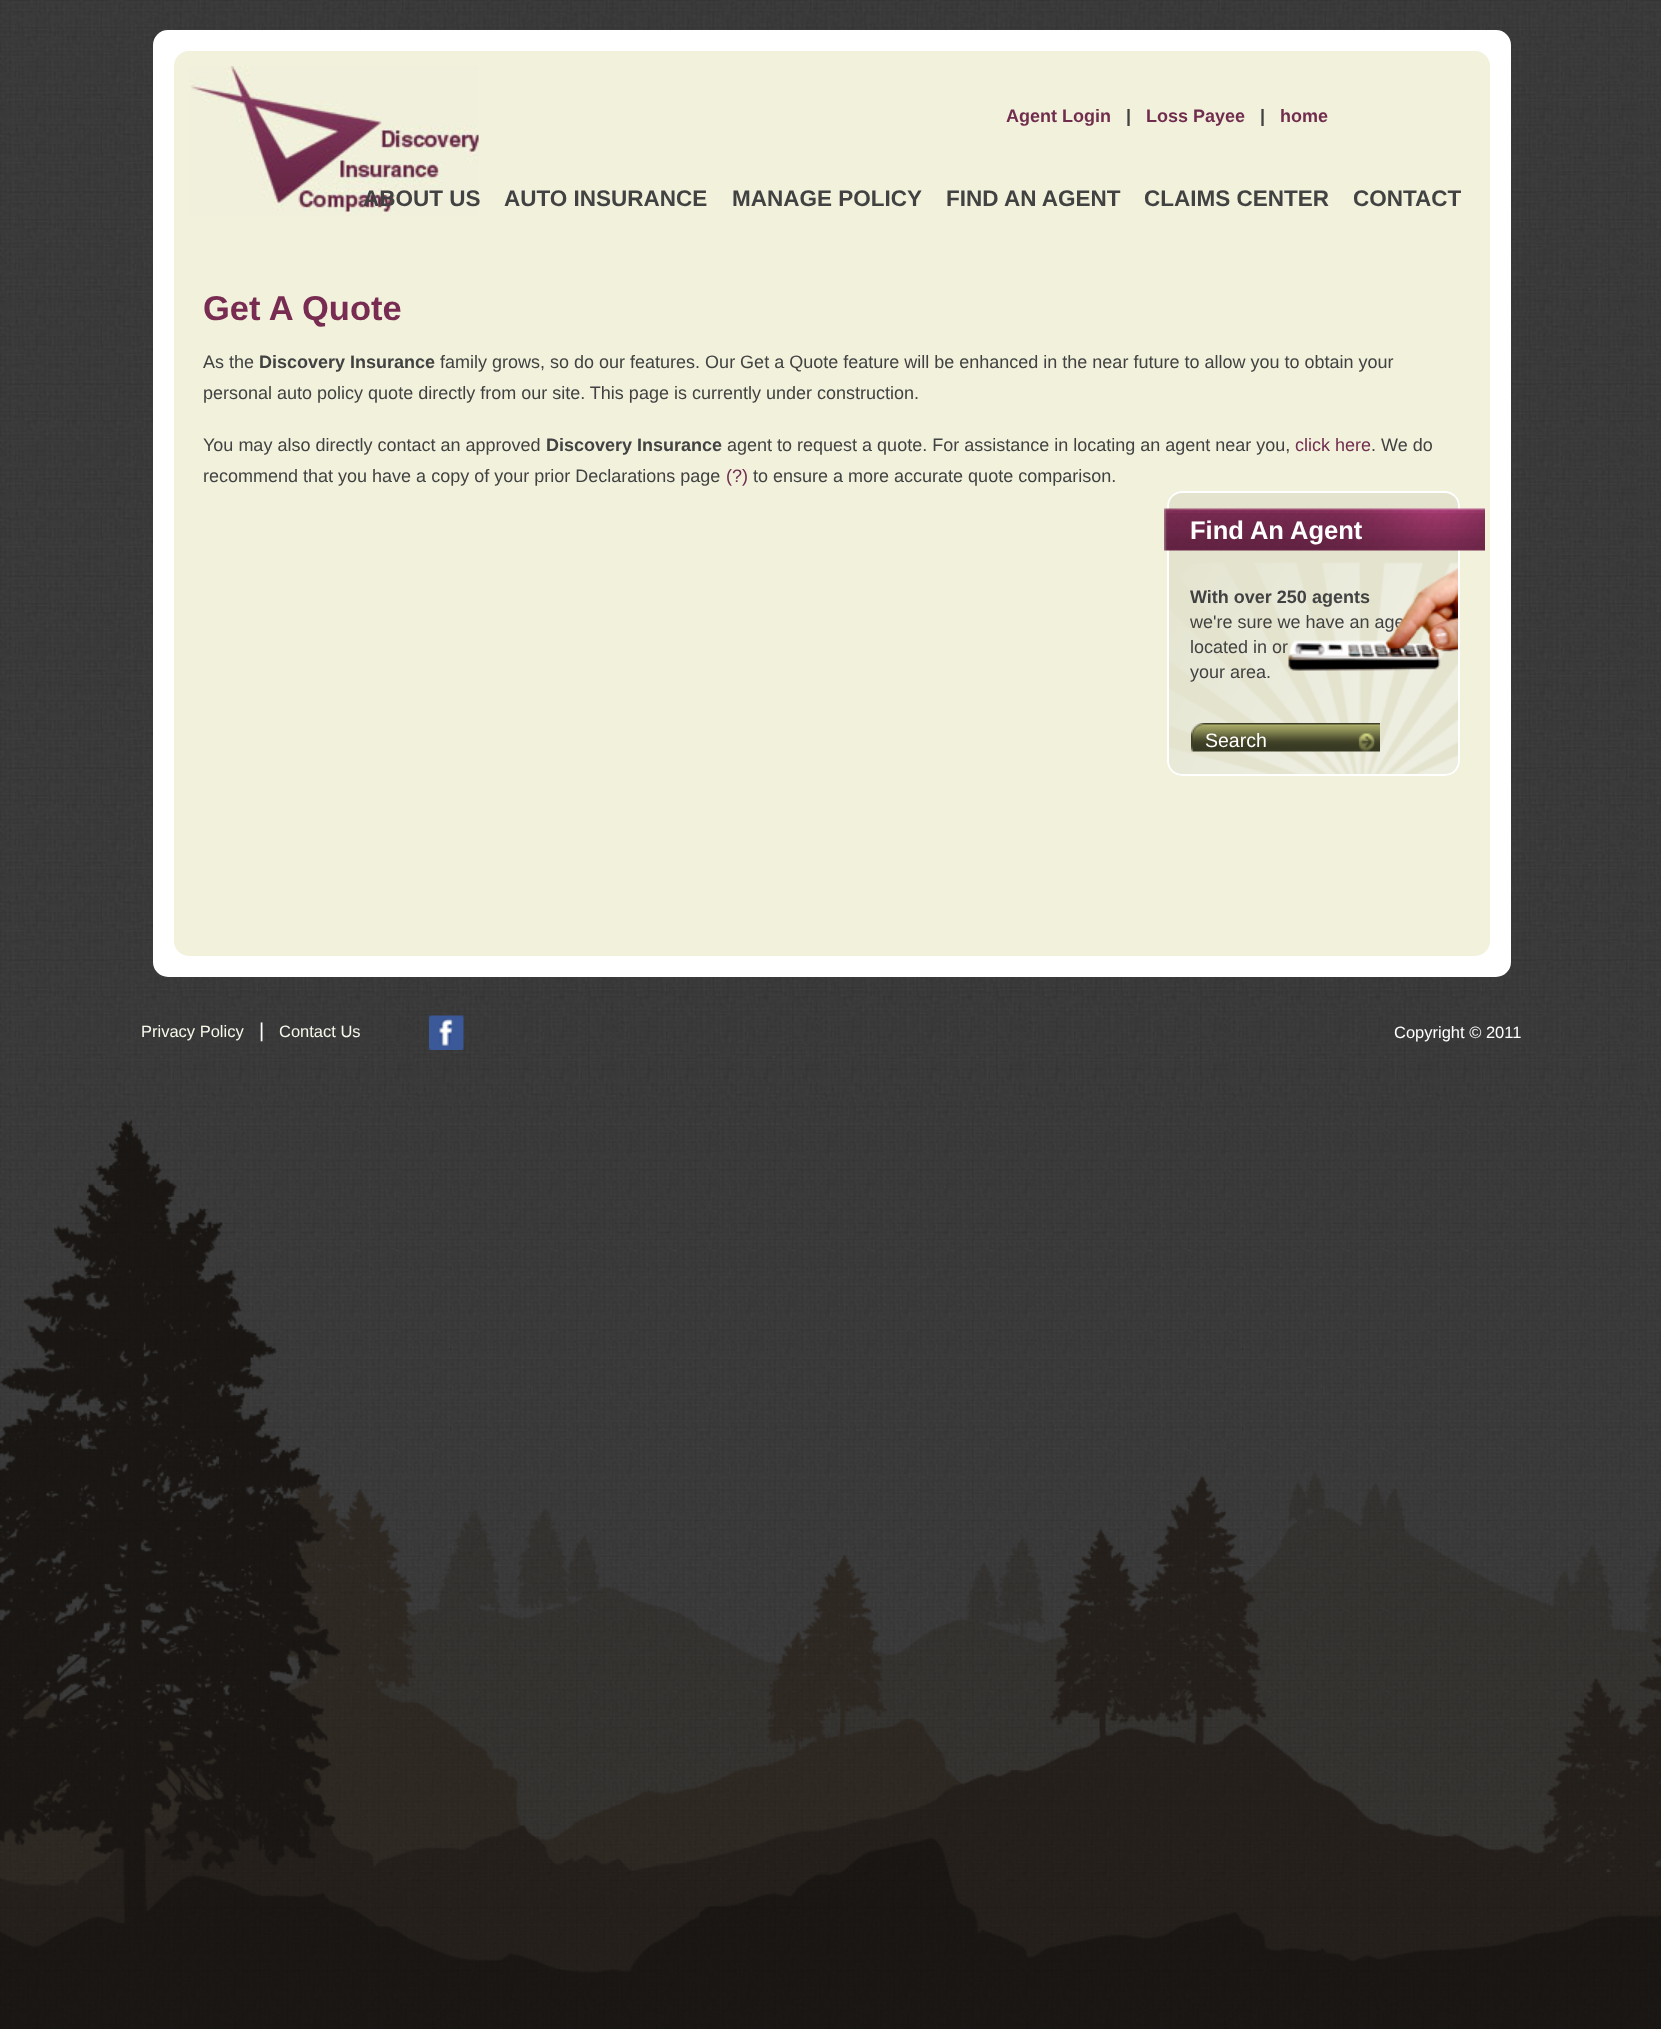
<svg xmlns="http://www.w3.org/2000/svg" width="1661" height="2029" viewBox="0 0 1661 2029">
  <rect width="100%" height="100%" fill="#fff"/>
  <image x="0" y="0" width="1661" height="1100" href="img/1.png"/>
  <rect x="153" y="30" width="1358" height="947" rx="15" fill="#fff"/>
  <rect x="174" y="51" width="1316" height="905" rx="15" fill="#f1f1dc"/>
  <image x="189" y="66" width="290" height="150" href="img/2.png"/>
  <rect x="1167" y="491" width="293" height="285" rx="15" fill="#e3e3ce"/>
  <image x="1167" y="562" width="293" height="212" href="img/3.png"/>
  <rect x="1168" y="492" width="291" height="283" rx="14" fill="none" stroke="#fff" stroke-width="2"/>
  <image x="1164" y="508" width="321" height="43" href="img/4.png"/>
  <image x="1191" y="723" width="189" height="29" href="img/6.png"/>
  <image x="429" y="1015" width="35" height="35" href="img/7.png"/>
  <image x="0" y="1100" width="1661" height="929" href="img/8.png"/>
  <text x="1006" y="122" font-family="Liberation Sans" font-size="18" font-weight="bold" fill="#712d4e">Agent Login</text>
  <text x="1126" y="122" font-family="Liberation Sans" font-size="18" font-weight="bold" fill="#424242">|</text>
  <text x="1146" y="122" font-family="Liberation Sans" font-size="18" font-weight="bold" fill="#712d4e">Loss Payee</text>
  <text x="1260" y="122" font-family="Liberation Sans" font-size="18" font-weight="bold" fill="#424242">|</text>
  <text x="1280" y="122" font-family="Liberation Sans" font-size="18" font-weight="bold" fill="#712d4e">home</text>
  <g font-family="Liberation Sans" font-size="22.5" font-weight="bold" fill="#424242">
    <text x="363" y="206">ABOUT US</text>
    <text x="504" y="206">AUTO INSURANCE</text>
    <text x="732" y="206">MANAGE POLICY</text>
    <text x="946" y="206">FIND AN AGENT</text>
    <text x="1144" y="206">CLAIMS CENTER</text>
    <text x="1353" y="206">CONTACT</text>
  </g>
  <text x="203" y="320" font-family="Liberation Sans" font-size="34.5" font-weight="bold" fill="#782c51">Get A Quote</text>
  <text x="203" y="368" font-family="Liberation Sans" font-size="18" fill="#424242">As the</text>
  <text x="259" y="368" font-family="Liberation Sans" font-size="18" font-weight="bold" fill="#424242">Discovery Insurance</text>
  <g font-family="Liberation Sans" font-size="18" fill="#424242">
    <text x="440" y="368">family grows, so do our features. Our Get a Quote feature will be enhanced in the near future to allow you to obtain your</text>
    <text x="203" y="399">personal auto policy quote directly from our site. This page is currently under construction.</text>
    <text x="203" y="451">You may also directly contact an approved</text>
  </g>
  <text x="546" y="451" font-family="Liberation Sans" font-size="18" font-weight="bold" fill="#424242">Discovery Insurance</text>
  <text x="727" y="451" font-family="Liberation Sans" font-size="18" fill="#424242">agent to request a quote. For assistance in locating an agent near you,</text>
  <text x="1295" y="451" font-family="Liberation Sans" font-size="18" fill="#712d4e">click here</text>
  <g font-family="Liberation Sans" font-size="18" fill="#424242">
    <text x="1371" y="451">. We do</text>
    <text x="203" y="482">recommend that you have a copy of your prior Declarations page</text>
  </g>
  <text x="726" y="482" font-family="Liberation Sans" font-size="18" fill="#712d4e">(?)</text>
  <text x="753" y="482" font-family="Liberation Sans" font-size="18" fill="#424242">to ensure a more accurate quote comparison.</text>
  <text x="1190" y="539" font-family="Liberation Sans" font-size="25.5" font-weight="bold" fill="#fff">Find An Agent</text>
  <text x="1190" y="603" font-family="Liberation Sans" font-size="18" font-weight="bold" fill="#424242">With over 250 agents</text>
  <g font-family="Liberation Sans" font-size="18" fill="#424242">
    <text x="1190" y="628">we're sure we have an age</text>
    <text x="1190" y="653">located in or</text>
  </g>
  <image x="1288" y="568" width="170" height="103" href="img/5.png"/>
  <text x="1190" y="678" font-family="Liberation Sans" font-size="18" fill="#424242">your area.</text>
  <text x="1205" y="747" font-family="Liberation Sans" font-size="19.5" fill="#fff">Search</text>
  <text x="141" y="1037" font-family="Liberation Sans" font-size="16.5" fill="#f7f7ec">Privacy Policy</text>
  <text x="259" y="1037" font-family="Liberation Sans" font-size="20" fill="#fff">|</text>
  <text x="279" y="1037" font-family="Liberation Sans" font-size="16.5" fill="#f7f7ec">Contact Us</text>
  <text x="1394" y="1038" font-family="Liberation Sans" font-size="16.5" fill="#fff">Copyright © 2011</text>
</svg>
